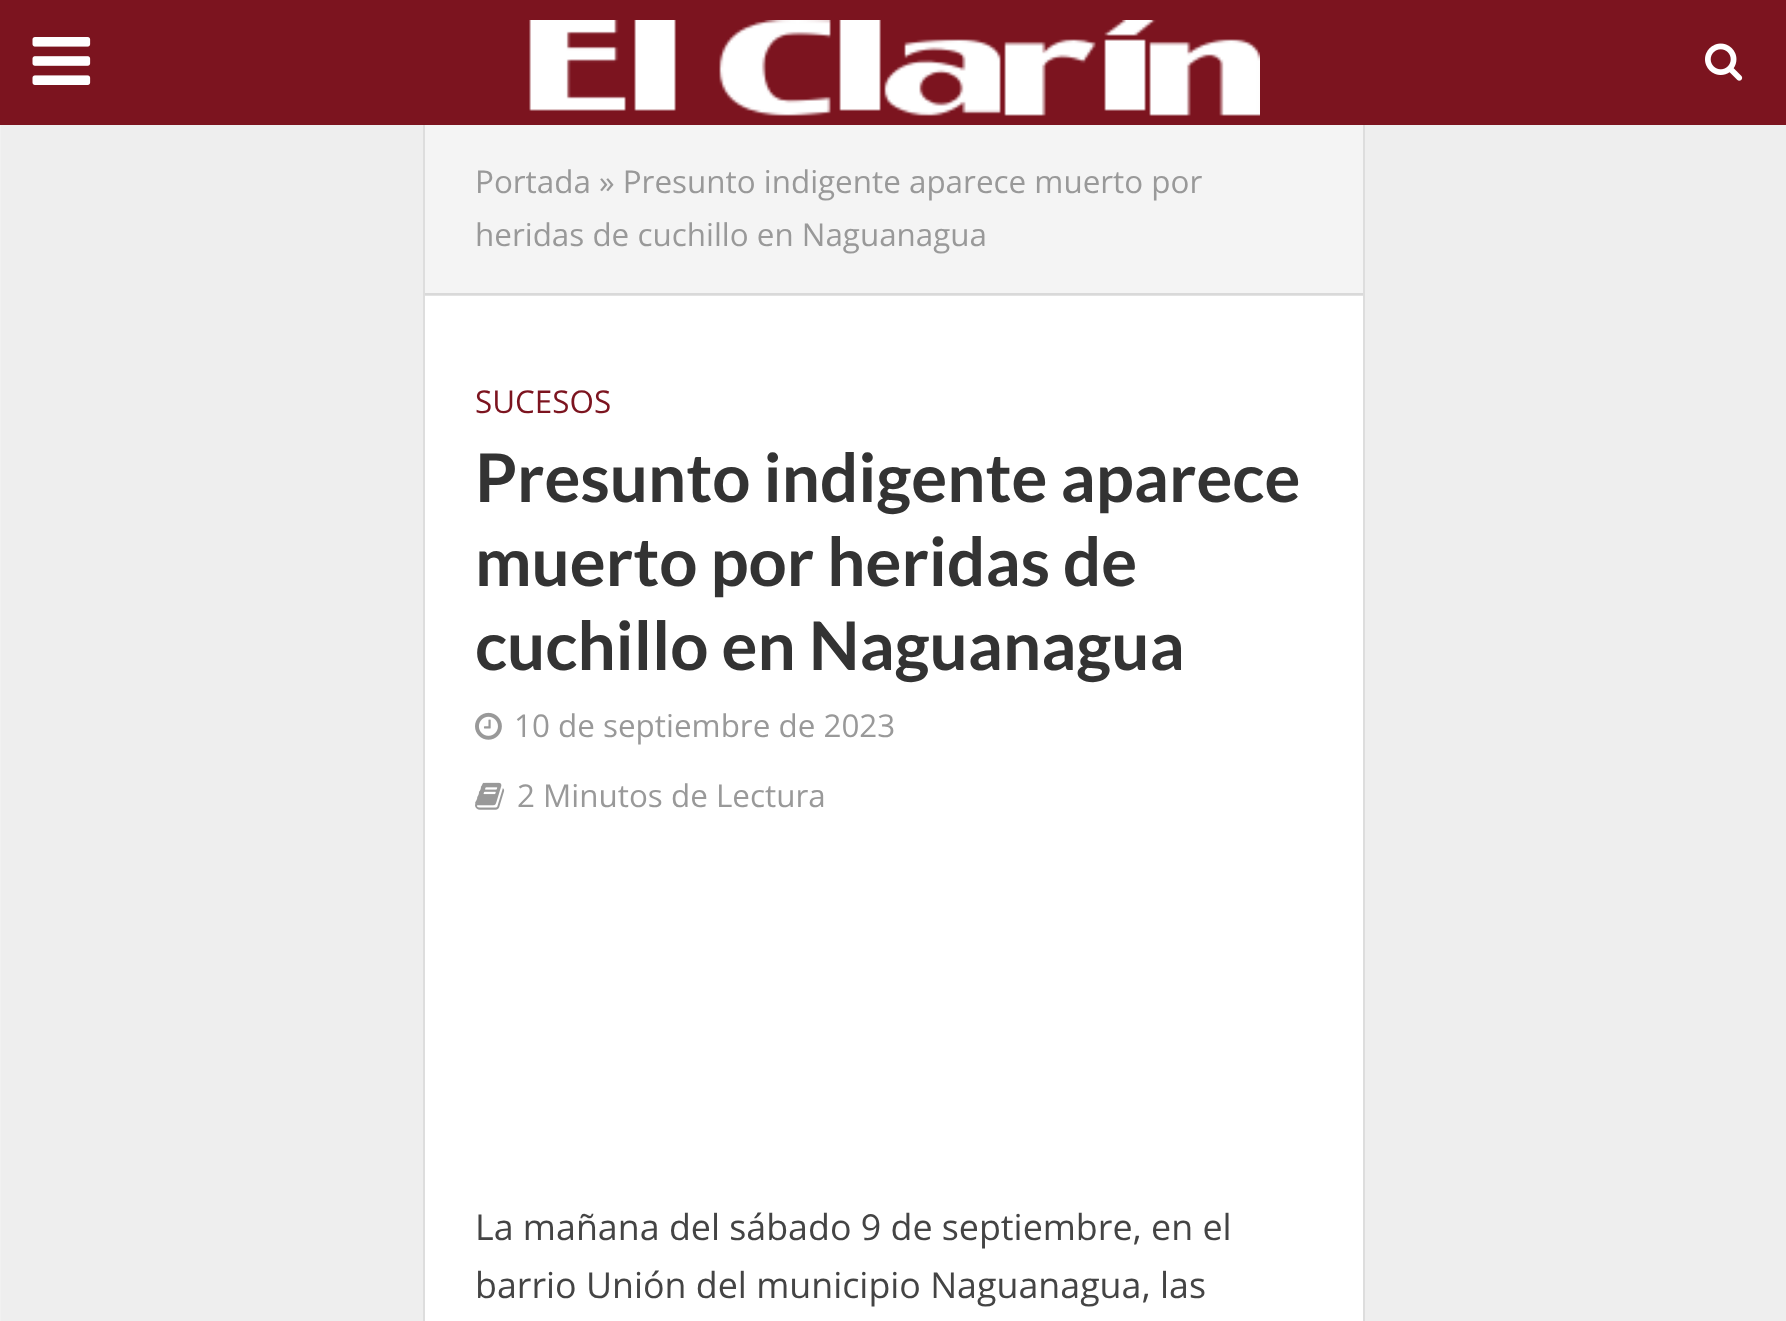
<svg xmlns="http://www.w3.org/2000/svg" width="1786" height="1321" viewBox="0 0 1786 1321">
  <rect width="100%" height="100%" fill="#eee"/>
  <path d="M424.5 124.5h939v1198H424.5z" fill="none" stroke="#ddd" stroke-width="3"/>
  <path d="M0 0h1786v125H0z" fill="#7c141f"/>
  <image x="32" y="37" width="59" height="48" href="img/1.png"/>
  <image x="529" y="20" width="731" height="96" href="img/2.png"/>
  <image x="1705" y="43" width="38" height="38" href="img/3.png"/>
  <path d="M0 125h1v1196H0z" fill="#f1f1f1"/>
  <path d="M425 295h938v1026H425z" fill="#fff"/>
  <path d="M425 125h938v170H425z" fill="#f4f4f4"/>
  <path d="M425 293h938v3H425z" fill="#44444426"/>
  <image x="475" y="712" width="27" height="28" href="img/4.png"/>
  <image x="475" y="782" width="30" height="28" href="img/5.png"/>
  <g font-family="Open Sans" font-size="31.4" fill="#999">
    <text x="475" y="193">Portada » Presunto indigente aparece muerto por</text>
    <text x="475" y="246">heridas de cuchillo en Naguanagua</text>
  </g>
  <text x="475" y="413" font-family="Open Sans" font-size="31.4" fill="#7c141f">SUCESOS</text>
  <g font-family="Lato" font-size="67.25" font-weight="bold" fill="#333">
    <text x="475" y="502">Presunto indigente aparece</text>
    <text x="475" y="586">muerto por heridas de</text>
    <text x="475" y="670">cuchillo en Naguanagua</text>
  </g>
  <g font-family="Open Sans" font-size="31.4" fill="#999">
    <text x="514" y="737">10 de septiembre de 2023</text>
    <text x="517" y="807">2 Minutos de Lectura</text>
  </g>
  <g font-family="Open Sans" font-size="35.8" fill="#444">
    <text x="475" y="1240">La mañana del sábado 9 de septiembre, en el</text>
    <text x="475" y="1298">barrio Unión del municipio Naguanagua, las</text>
  </g>
</svg>
